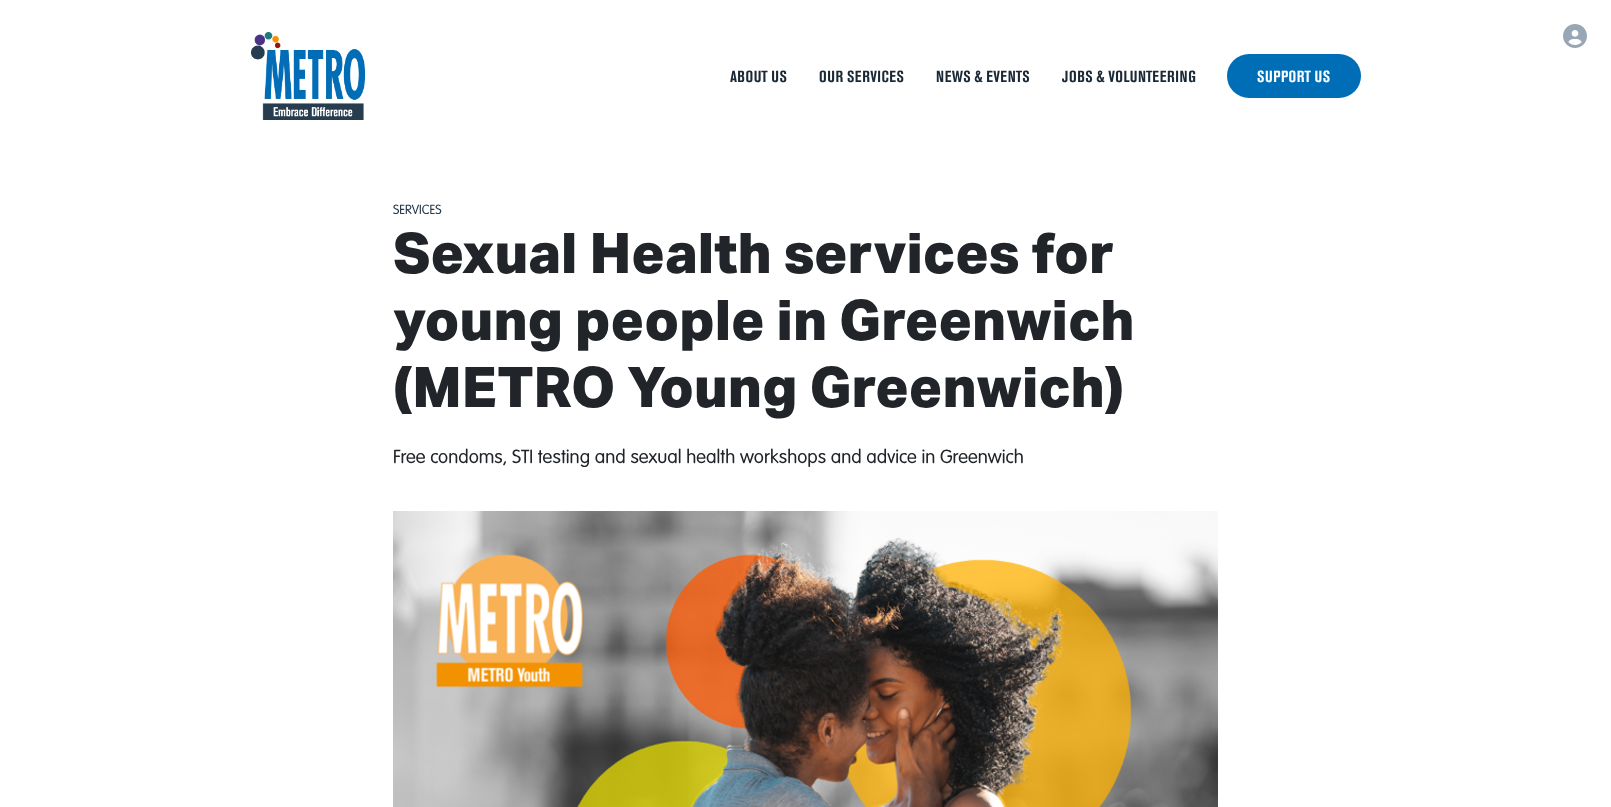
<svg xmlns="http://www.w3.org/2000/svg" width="1611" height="807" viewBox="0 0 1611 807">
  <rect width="100%" height="100%" fill="#fff"/>
  <image x="1563" y="24" width="24" height="24" href="img/1.png"/>
  <image x="251" y="32" width="114" height="88" href="img/2.png"/>
  <rect x="1227" y="54" width="134" height="44" rx="22" fill="#006eb6"/>
  <image x="393" y="511" width="825" height="296" href="img/3.png"/>
  <g font-family="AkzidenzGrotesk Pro" font-size="16" font-weight="bold" fill="#1b2936">
    <text x="730" y="82">ABOUT US</text>
    <text x="819" y="82">OUR SERVICES</text>
    <text x="936" y="82">NEWS &amp; EVENTS</text>
    <text x="1062" y="82">JOBS &amp; VOLUNTEERING</text>
  </g>
  <text x="1257" y="82" font-family="AkzidenzGrotesk Pro" font-size="16" font-weight="bold" fill="#fff">SUPPORT US</text>
  <text x="393" y="214" font-family="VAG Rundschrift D" font-size="14" font-weight="300" fill="#273c4e">SERVICES</text>
  <g font-family="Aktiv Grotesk" font-size="56" font-weight="bold" fill="#212529">
    <text x="393" y="273">Sexual Health services for</text>
    <text x="393" y="340">young people in Greenwich</text>
    <text x="393" y="407">(METRO Young Greenwich)</text>
  </g>
  <text x="393" y="463" font-family="VAG Rundschrift D" font-size="20" font-weight="300" fill="#212529">Free condoms, STI testing and sexual health workshops and advice in Greenwich</text>
</svg>
